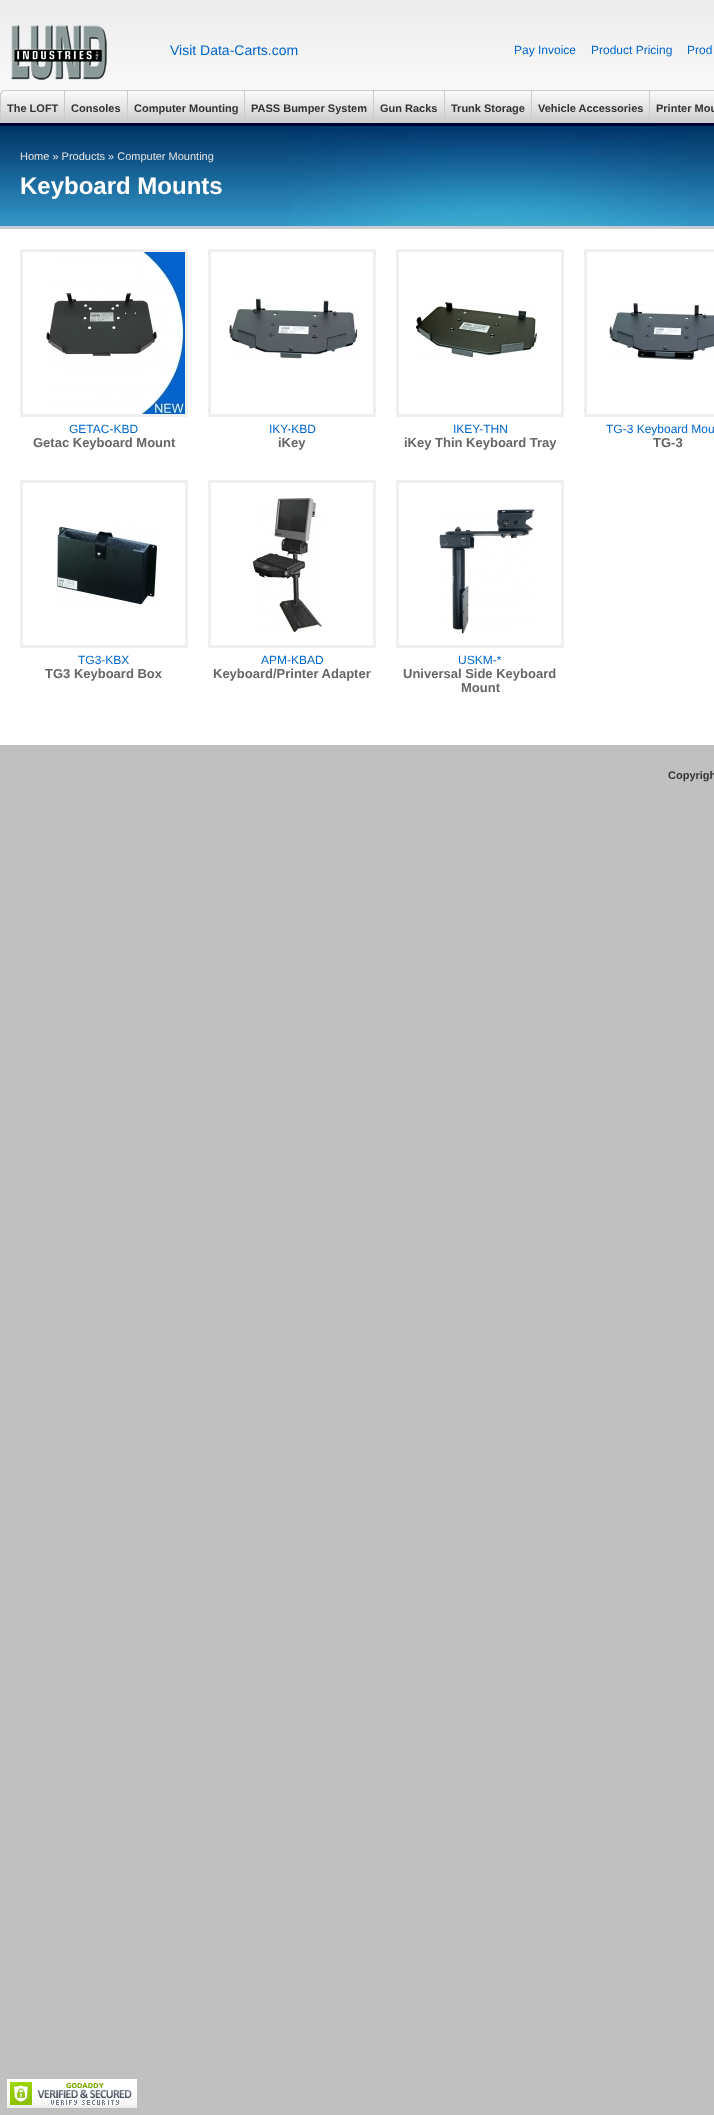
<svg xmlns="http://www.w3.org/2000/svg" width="714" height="2115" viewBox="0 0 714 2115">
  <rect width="100%" height="100%" fill="#c0c0c0"/>
  <image x="0" y="0" width="714" height="95" href="img/1.png"/>
  <image x="11" y="25" width="96" height="55" href="img/2.png"/>
  <image x="0" y="94" width="714" height="29" href="img/3.png"/>
  <path d="M5 90H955C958 90 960 92 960 95V123H0V95C0 92 2 90 5 90ZM5 91H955C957 91 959 93 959 95V123H1V95C1 93 3 91 5 91Z" fill="#ccc" fill-rule="evenodd"/>
  <path d="M3 91h1v1H3z" fill="#ececec"/>
  <path d="M64 91h1v32H64z" fill="#ccc"/>
  <path d="M127 91h1v32H127z" fill="#ccc"/>
  <path d="M244 91h1v32H244z" fill="#ccc"/>
  <path d="M373 91h1v32H373z" fill="#ccc"/>
  <path d="M444 91h1v32H444z" fill="#ccc"/>
  <path d="M531 91h1v32H531z" fill="#ccc"/>
  <path d="M649 91h1v32H649z" fill="#ccc"/>
  <image x="0" y="126" width="714" height="103" href="img/4.png"/>
  <path d="M0 123h714v3H0z" fill="#003"/>
  <path d="M0 229h714v516H0z" fill="#fff"/>
  <path d="M21.5 250.5h165v165H21.5z" fill="none" stroke="#efefef" stroke-width="3"/>
  <image x="46" y="252" width="139" height="162" href="img/5.png"/>
  <path d="M209.5 250.5h165v165H209.5z" fill="none" stroke="#efefef" stroke-width="3"/>
  <image x="229" y="298" width="129" height="61" href="img/6.png"/>
  <path d="M397.5 250.5h165v165H397.5z" fill="none" stroke="#efefef" stroke-width="3"/>
  <image x="415" y="302" width="122" height="56" href="img/7.png"/>
  <path d="M585.5 250.5h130v165H585.5z" fill="none" stroke="#efefef" stroke-width="3"/>
  <image x="609" y="303" width="105" height="57" href="img/8.png"/>
  <path d="M21.5 481.5h165v165H21.5z" fill="none" stroke="#efefef" stroke-width="3"/>
  <image x="56" y="526" width="102" height="79" href="img/9.png"/>
  <path d="M209.5 481.5h165v165H209.5z" fill="none" stroke="#efefef" stroke-width="3"/>
  <image x="252" y="498" width="70" height="135" href="img/10.png"/>
  <path d="M397.5 481.5h165v165H397.5z" fill="none" stroke="#efefef" stroke-width="3"/>
  <image x="439" y="509" width="96" height="125" href="img/11.png"/>
  <image x="7" y="2079" width="130" height="29" href="img/12.png"/>
  <text x="170" y="55" font-family="Liberation Sans" font-size="14" fill="#06c">Visit Data-Carts.com</text>
  <g font-family="Liberation Sans" font-size="12" fill="#06c">
    <text x="514" y="54">Pay Invoice</text>
    <text x="591" y="54">Product Pricing</text>
    <text x="687" y="54">Prod</text>
  </g>
  <g font-family="Liberation Sans" font-size="11" font-weight="bold" fill="#333">
    <text x="7" y="112">The LOFT</text>
    <text x="71" y="112">Consoles</text>
    <text x="134" y="112">Computer Mounting</text>
    <text x="251" y="112">PASS Bumper System</text>
    <text x="380" y="112">Gun Racks</text>
    <text x="451" y="112">Trunk Storage</text>
    <text x="538" y="112">Vehicle Accessories</text>
    <text x="656" y="112">Printer Mou</text>
  </g>
  <text x="20" y="160" font-family="Liberation Sans" font-size="11" fill="#e3e3e3">Home » Products » Computer Mounting</text>
  <text x="20" y="194" font-family="Liberation Sans" font-size="24" font-weight="bold" fill="#fff">Keyboard Mounts</text>
  <text x="69" y="433" font-family="Liberation Sans" font-size="12" fill="#06c">GETAC-KBD</text>
  <text x="33" y="447" font-family="Liberation Sans" font-size="13" font-weight="bold" fill="#666">Getac Keyboard Mount</text>
  <text x="269" y="433" font-family="Liberation Sans" font-size="12" fill="#06c">IKY-KBD</text>
  <text x="278" y="447" font-family="Liberation Sans" font-size="13" font-weight="bold" fill="#666">iKey</text>
  <text x="453" y="433" font-family="Liberation Sans" font-size="12" fill="#06c">IKEY-THN</text>
  <text x="404" y="447" font-family="Liberation Sans" font-size="13" font-weight="bold" fill="#666">iKey Thin Keyboard Tray</text>
  <text x="606" y="433" font-family="Liberation Sans" font-size="12" fill="#06c">TG-3 Keyboard Mou</text>
  <text x="653" y="447" font-family="Liberation Sans" font-size="13" font-weight="bold" fill="#666">TG-3</text>
  <text x="78" y="664" font-family="Liberation Sans" font-size="12" fill="#06c">TG3-KBX</text>
  <text x="45" y="678" font-family="Liberation Sans" font-size="13" font-weight="bold" fill="#666">TG3 Keyboard Box</text>
  <text x="261" y="664" font-family="Liberation Sans" font-size="12" fill="#06c">APM-KBAD</text>
  <text x="213" y="678" font-family="Liberation Sans" font-size="13" font-weight="bold" fill="#666">Keyboard/Printer Adapter</text>
  <text x="458" y="664" font-family="Liberation Sans" font-size="12" fill="#06c">USKM-*</text>
  <g font-family="Liberation Sans" font-size="13" font-weight="bold" fill="#666">
    <text x="403" y="678">Universal Side Keyboard</text>
    <text x="461" y="692">Mount</text>
  </g>
  <text x="668" y="779" font-family="Liberation Sans" font-size="11" font-weight="bold" fill="#333">Copyrigh</text>
</svg>
